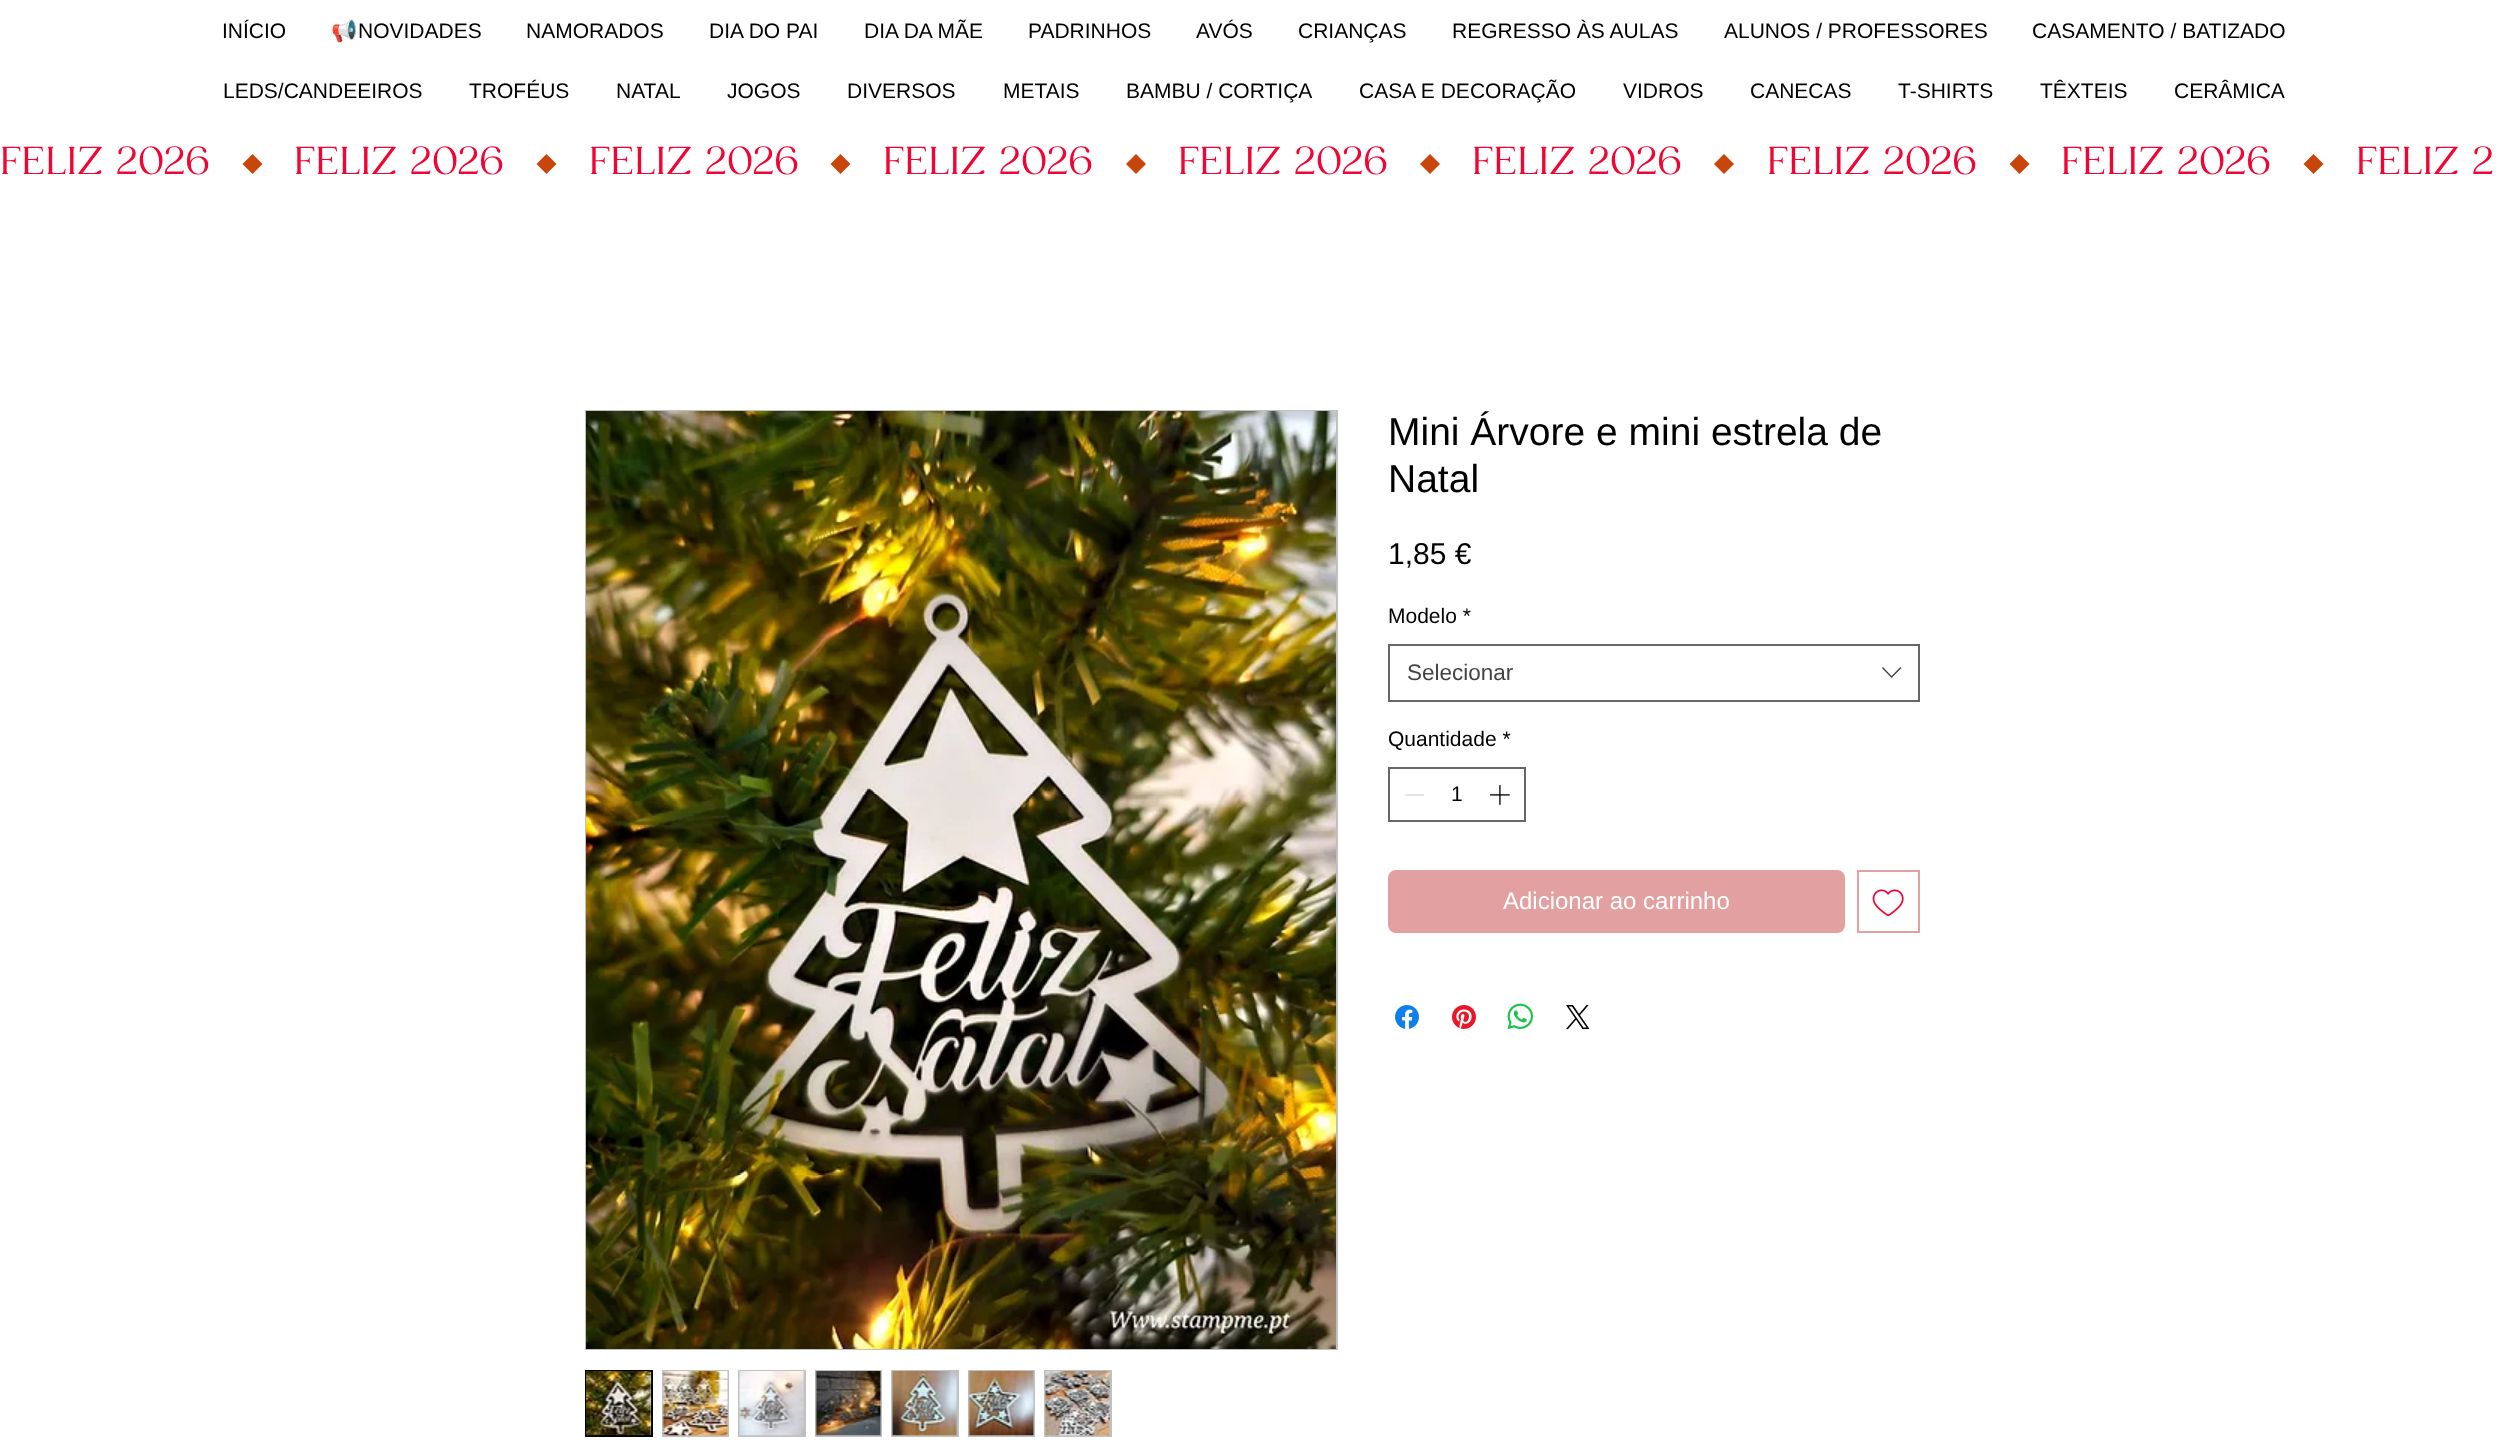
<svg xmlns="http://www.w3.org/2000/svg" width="2505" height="1452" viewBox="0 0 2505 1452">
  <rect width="100%" height="100%" fill="#fff"/>
  <path d="M262.5 164L252.5 174L242.5 164L252.5 154Z" fill="#c8460b"/>
  <path d="M556.5 164L546.5 174L536.5 164L546.5 154Z" fill="#c8460b"/>
  <path d="M850.5 164L840.5 174L830.5 164L840.5 154Z" fill="#c8460b"/>
  <path d="M1146 164L1136 174L1126 164L1136 154Z" fill="#c8460b"/>
  <path d="M1440 164L1430 174L1420 164L1430 154Z" fill="#c8460b"/>
  <path d="M1734 164L1724 174L1714 164L1724 154Z" fill="#c8460b"/>
  <path d="M2029.5 164L2019.5 174L2009.5 164L2019.5 154Z" fill="#c8460b"/>
  <path d="M2323.5 164L2313.5 174L2303.5 164L2313.5 154Z" fill="#c8460b"/>
  <path d="M586 411h751v938H586z" fill="none" stroke="#c0c0c0" stroke-width="2"/>
  <image x="586" y="411" width="750" height="938" href="img/1.png"/>
  <path d="M650 1372h1v63H650z" fill="#c0c0c0"/>
  <path d="M586 1371h66v65H586z" fill="none" stroke="#000" stroke-width="2"/>
  <image x="586" y="1371" width="66" height="65" href="img/2.png"/>
  <path d="M662 1370h67v67H662z" fill="#c0c0c0"/>
  <image x="662" y="1371" width="66" height="65" href="img/3.png"/>
  <path d="M738 1370h68v67H738z" fill="#c0c0c0"/>
  <image x="739" y="1371" width="66" height="65" href="img/4.png"/>
  <path d="M815 1370h67v67H815z" fill="#c0c0c0"/>
  <image x="815" y="1371" width="66" height="65" href="img/5.png"/>
  <path d="M891 1370h68v67H891z" fill="#c0c0c0"/>
  <image x="892" y="1371" width="66" height="65" href="img/6.png"/>
  <path d="M968 1370h67v67H968z" fill="#c0c0c0"/>
  <image x="968" y="1371" width="66" height="65" href="img/7.png"/>
  <path d="M1044 1370h68v67H1044z" fill="#c0c0c0"/>
  <image x="1045" y="1371" width="65" height="65" href="img/8.png"/>
  <path d="M1389 645h530v56H1389z" fill="none" stroke="#666" stroke-width="2"/>
  <path d="M1900.5 667L1901.5 668L1891.5 678L1882 668L1883 667L1891.5 676Z" fill="#444" fill-rule="evenodd"/>
  <path d="M1389 768h136v53H1389z" fill="none" stroke="#666" stroke-width="2"/>
  <path d="M1405 794h19v2H1405z" fill="#e3e3e3"/>
  <image x="1490" y="785" width="20" height="20" href="img/9.png"/>
  <rect x="1388" y="870" width="457" height="63" rx="8" fill="#e2a0a0"/>
  <path d="M1858 871h61v61H1858z" fill="none" stroke="#e2a0a0" stroke-width="2"/>
  <image x="1872" y="889" width="32" height="28" href="img/10.png"/>
  <image x="1395" y="1005" width="24" height="24" href="img/11.png"/>
  <image x="1452" y="1005" width="24" height="24" href="img/12.png"/>
  <image x="1507" y="1003" width="26" height="27" href="img/13.png"/>
  <image x="1566" y="1005" width="24" height="24" href="img/14.png"/>
  <text x="222" y="38" font-family="Liberation Sans" font-size="21" fill="#000">INÍCIO</text>
  <text x="331" y="38" font-family="Noto Color Emoji" font-size="21" fill="#000">📢</text>
  <g font-family="Liberation Sans" font-size="21" fill="#000">
    <text x="358" y="38">NOVIDADES</text>
    <text x="526" y="38">NAMORADOS</text>
    <text x="709" y="38">DIA DO PAI</text>
    <text x="864" y="38">DIA DA MÃE</text>
    <text x="1028" y="38">PADRINHOS</text>
    <text x="1196" y="38">AVÓS</text>
    <text x="1298" y="38">CRIANÇAS</text>
    <text x="1452" y="38">REGRESSO ÀS AULAS</text>
    <text x="1724" y="38">ALUNOS / PROFESSORES</text>
    <text x="2032" y="38">CASAMENTO / BATIZADO</text>
    <text x="223" y="98">LEDS/CANDEEIROS</text>
    <text x="469" y="98">TROFÉUS</text>
    <text x="616" y="98">NATAL</text>
    <text x="727" y="98">JOGOS</text>
    <text x="847" y="98">DIVERSOS</text>
    <text x="1003" y="98">METAIS</text>
    <text x="1126" y="98">BAMBU / CORTIÇA</text>
    <text x="1359" y="98">CASA E DECORAÇÃO</text>
    <text x="1623" y="98">VIDROS</text>
    <text x="1750" y="98">CANECAS</text>
    <text x="1898" y="98">T-SHIRTS</text>
    <text x="2040" y="98">TÊXTEIS</text>
    <text x="2174" y="98">CERÂMICA</text>
  </g>
  <g font-family="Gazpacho" font-size="37.5" fill="#f00534">
    <text x="0" y="174">FELIZ 2026</text>
    <text x="294" y="174">FELIZ 2026</text>
    <text x="589" y="174">FELIZ 2026</text>
    <text x="883" y="174">FELIZ 2026</text>
    <text x="1178" y="174">FELIZ 2026</text>
    <text x="1472" y="174">FELIZ 2026</text>
    <text x="1767" y="174">FELIZ 2026</text>
    <text x="2061" y="174">FELIZ 2026</text>
    <text x="2356" y="174">FELIZ 2</text>
  </g>
  <g font-family="Liberation Sans" font-size="39" fill="#000">
    <text x="1388" y="445">Mini Árvore e mini estrela de</text>
    <text x="1388" y="492">Natal</text>
  </g>
  <text x="1388" y="564" font-family="Liberation Sans" font-size="30" fill="#000">1,85 €</text>
  <text x="1388" y="623" font-family="Liberation Sans" font-size="21" fill="#000">Modelo *</text>
  <text x="1407" y="680" font-family="Liberation Sans" font-size="22.5" fill="#444">Selecionar</text>
  <g font-family="Liberation Sans" font-size="21" fill="#000">
    <text x="1388" y="746">Quantidade *</text>
    <text x="1451" y="801">1</text>
  </g>
  <text x="1503" y="909" font-family="Liberation Sans" font-size="24" fill="#fff">Adicionar ao carrinho</text>
</svg>
